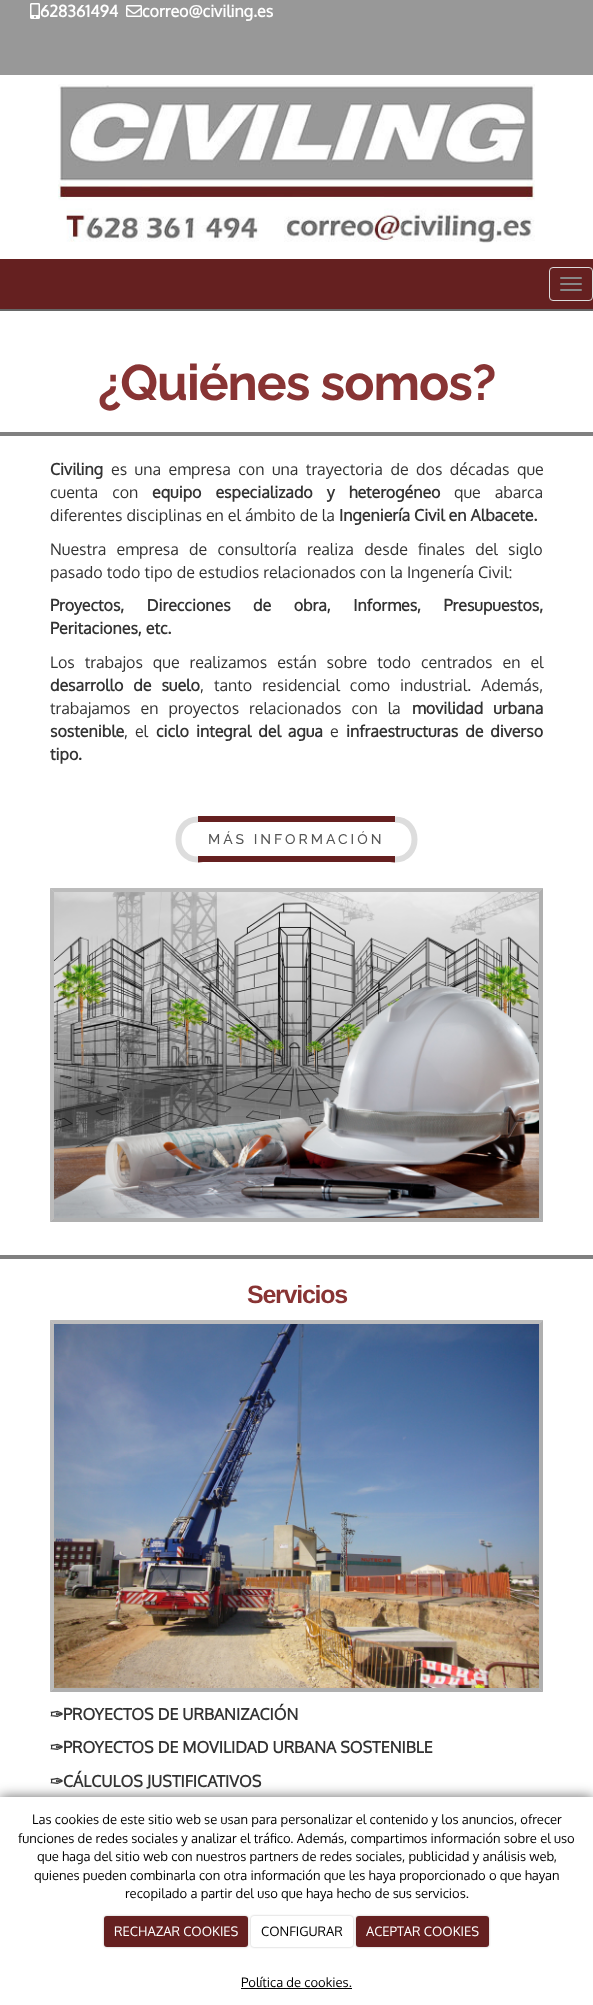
<svg xmlns="http://www.w3.org/2000/svg" width="593" height="2005" viewBox="0 0 593 2005">
  <rect width="100%" height="100%" fill="#fff"/>
  <path d="M0 0h593v75H0z" fill="#989898"/>
  <image x="30" y="3" width="10" height="16" href="img/1.png"/>
  <image x="126" y="5" width="16" height="12" href="img/2.png"/>
  <image x="58" y="84" width="477" height="159" href="img/3.png"/>
  <path d="M0 259h593v50H0z" fill="#652020"/>
  <path d="M0 309h593v2H0z" fill="#676767"/>
  <rect x="549.5" y="267.5" width="43" height="33" rx="3.5" fill="none" stroke="#ddd"/>
  <rect x="560" y="277" width="22" height="2" rx="1" fill="#888"/>
  <rect x="560" y="283" width="22" height="2" rx="1" fill="#888"/>
  <rect x="560" y="289" width="22" height="2" rx="1" fill="#888"/>
  <path d="M0 432h593v4H0z" fill="#808080"/>
  <path d="M198 819.5C224.5 819.5 224.5 859.5 198 859.5" fill="none" stroke="#652020" stroke-width="6"/>
  <path d="M395 859.5C368.5 859.5 368.5 819.5 395 819.5" fill="none" stroke="#652020" stroke-width="6"/>
  <path d="M198 822h197v34H198z" fill="#fff"/>
  <path d="M198 816h197v6H198z" fill="#652020"/>
  <path d="M198 856h197v6H198z" fill="#652020"/>
  <path d="M198 859.5C172 859.5 172 819.5 198 819.5" fill="none" stroke="#ddd" stroke-width="6"/>
  <path d="M395 819.5C421 819.5 421 859.5 395 859.5" fill="none" stroke="#ddd" stroke-width="6"/>
  <path d="M50 888H543L539 892H54Z" fill="#bcbcbc"/>
  <path d="M543 888V1222L539 1218V892Z" fill="#3d3d3d69"/>
  <path d="M543 1222H50L54 1218H539Z" fill="#3d3d3d69"/>
  <path d="M50 1222V888L54 892V1218Z" fill="#5b5b5b69"/>
  <image x="54" y="892" width="485" height="326" href="img/4.png"/>
  <path d="M0 1255h593v4H0z" fill="#808080"/>
  <path d="M50 1320H543L539 1324H54Z" fill="#bcbcbc"/>
  <path d="M543 1320V1692L539 1688V1324Z" fill="#3d3d3d69"/>
  <path d="M543 1692H50L54 1688H539Z" fill="#3d3d3d69"/>
  <path d="M50 1692V1320L54 1324V1688Z" fill="#5b5b5b69"/>
  <image x="54" y="1324" width="485" height="364" href="img/5.png"/>
  <path d="M0 1797h593v208H0z" fill="#00000099" filter="blur(6.5px)"/>
  <path d="M0 1797h593v208H0z" fill="#fff"/>
  <rect x="104" y="1916" width="144" height="31" rx="3" fill="#00000040" filter="blur(1px)"/>
  <rect x="104" y="1916" width="144" height="31" rx="3" fill="#652020"/>
  <rect x="251" y="1916" width="102" height="31" rx="3" fill="#00000040" filter="blur(1px)"/>
  <rect x="251" y="1916" width="102" height="31" rx="3" fill="#fff"/>
  <rect x="356" y="1916" width="133" height="31" rx="3" fill="#00000040" filter="blur(1px)"/>
  <rect x="356" y="1916" width="133" height="31" rx="3" fill="#652020"/>
  <path d="M241 1988h111v1H241z" fill="#000"/>
  <g font-family="Oxygen" font-size="16" font-weight="bold" fill="#fff">
    <text x="40" y="17">628361494</text>
    <text x="142" y="17">correo@civiling.es</text>
  </g>
  <text x="98" y="400" font-family="Raleway" font-size="50" font-weight="bold" letter-spacing="-1" fill="#883434">¿Quiénes somos?</text>
  <text x="50" y="475" font-family="Oxygen" font-size="16" font-weight="bold" fill="#333">Civiling</text>
  <g font-family="Oxygen" font-size="16" fill="#333">
    <text x="111" y="475" word-spacing="3.5">es una empresa con una trayectoria de dos décadas que</text>
    <text x="50" y="498" word-spacing="10">cuenta con</text>
  </g>
  <text x="152" y="498" word-spacing="10" font-family="Oxygen" font-size="16" font-weight="bold" fill="#333">equipo especializado y heterogéneo</text>
  <g font-family="Oxygen" font-size="16" fill="#333">
    <text x="454" y="498" word-spacing="10">que abarca</text>
    <text x="50" y="521">diferentes disciplinas en el ámbito de la</text>
  </g>
  <text x="339" y="521" font-family="Oxygen" font-size="16" font-weight="bold" fill="#333">Ingeniería Civil en Albacete.</text>
  <g font-family="Oxygen" font-size="16" fill="#333">
    <text x="50" y="555" word-spacing="6.25">Nuestra empresa de consultoría realiza desde finales del siglo</text>
    <text x="50" y="578">pasado todo tipo de estudios relacionados con la Ingenería Civil:</text>
  </g>
  <g font-family="Oxygen" font-size="16" font-weight="bold" fill="#333">
    <text x="50" y="611" word-spacing="18.5">Proyectos, Direcciones de obra, Informes, Presupuestos,</text>
    <text x="50" y="634">Peritaciones, etc.</text>
  </g>
  <text x="50" y="668" word-spacing="6" font-family="Oxygen" font-size="16" fill="#333">Los trabajos que realizamos están sobre todo centrados en el</text>
  <text x="50" y="691" word-spacing="6" font-family="Oxygen" font-size="16" font-weight="bold" fill="#333">desarrollo de suelo</text>
  <g font-family="Oxygen" font-size="16" fill="#333">
    <text x="200" y="691" word-spacing="6">, tanto residencial como industrial. Además,</text>
    <text x="50" y="714" word-spacing="6">trabajamos en proyectos relacionados con la</text>
  </g>
  <g font-family="Oxygen" font-size="16" font-weight="bold" fill="#333">
    <text x="412" y="714" word-spacing="6">movilidad urbana</text>
    <text x="50" y="737">sostenible</text>
  </g>
  <text x="124" y="737" word-spacing="3" font-family="Oxygen" font-size="16" fill="#333">, el</text>
  <text x="156" y="737" word-spacing="3" font-family="Oxygen" font-size="16" font-weight="bold" fill="#333">ciclo integral del agua</text>
  <text x="330" y="737" font-family="Oxygen" font-size="16" fill="#333">e</text>
  <g font-family="Oxygen" font-size="16" font-weight="bold" fill="#333">
    <text x="346" y="737" word-spacing="3">infraestructuras de diverso</text>
    <text x="50" y="760">tipo.</text>
  </g>
  <text x="208" y="844" font-family="Raleway" font-size="14" font-weight="500" letter-spacing="3" fill="#555">MÁS INFORMACIÓN</text>
  <text x="247" y="1303" font-family="Liberation Sans" font-size="25" font-weight="bold" letter-spacing="-1.25" fill="#883434">Servicios</text>
  <text x="50" y="1720" font-family="DejaVu Sans" font-size="16" font-weight="bold" fill="#333">✑</text>
  <text x="63" y="1720" font-family="Oxygen" font-size="16" font-weight="bold" fill="#333">PROYECTOS DE URBANIZACIÓN</text>
  <text x="50" y="1753" font-family="DejaVu Sans" font-size="16" font-weight="bold" fill="#333">✑</text>
  <text x="63" y="1753" font-family="Oxygen" font-size="16" font-weight="bold" fill="#333">PROYECTOS DE MOVILIDAD URBANA SOSTENIBLE</text>
  <text x="50" y="1787" font-family="DejaVu Sans" font-size="16" font-weight="bold" fill="#333">✑</text>
  <text x="63" y="1787" font-family="Oxygen" font-size="16" font-weight="bold" fill="#333">CÁLCULOS JUSTIFICATIVOS</text>
  <g font-family="Oxygen" font-size="13" fill="#000">
    <text x="32" y="1824">Las cookies de este sitio web se usan para personalizar el contenido y los anuncios, ofrecer</text>
    <text x="18" y="1843">funciones de redes sociales y analizar el tráfico. Además, compartimos información sobre el uso</text>
    <text x="37" y="1861">que haga del sitio web con nuestros partners de redes sociales, publicidad y análisis web,</text>
    <text x="34" y="1880">quienes pueden combinarla con otra información que les haya proporcionado o que hayan</text>
    <text x="125" y="1898">recopilado a partir del uso que haya hecho de sus servicios.</text>
  </g>
  <text x="114" y="1936" font-family="Oxygen" font-size="13" fill="#fff">RECHAZAR COOKIES</text>
  <text x="261" y="1936" font-family="Oxygen" font-size="13" fill="#000">CONFIGURAR</text>
  <text x="366" y="1936" font-family="Oxygen" font-size="13" fill="#fff">ACEPTAR COOKIES</text>
  <text x="241" y="1987" font-family="Oxygen" font-size="13" fill="#000">Política de cookies.</text>
</svg>
